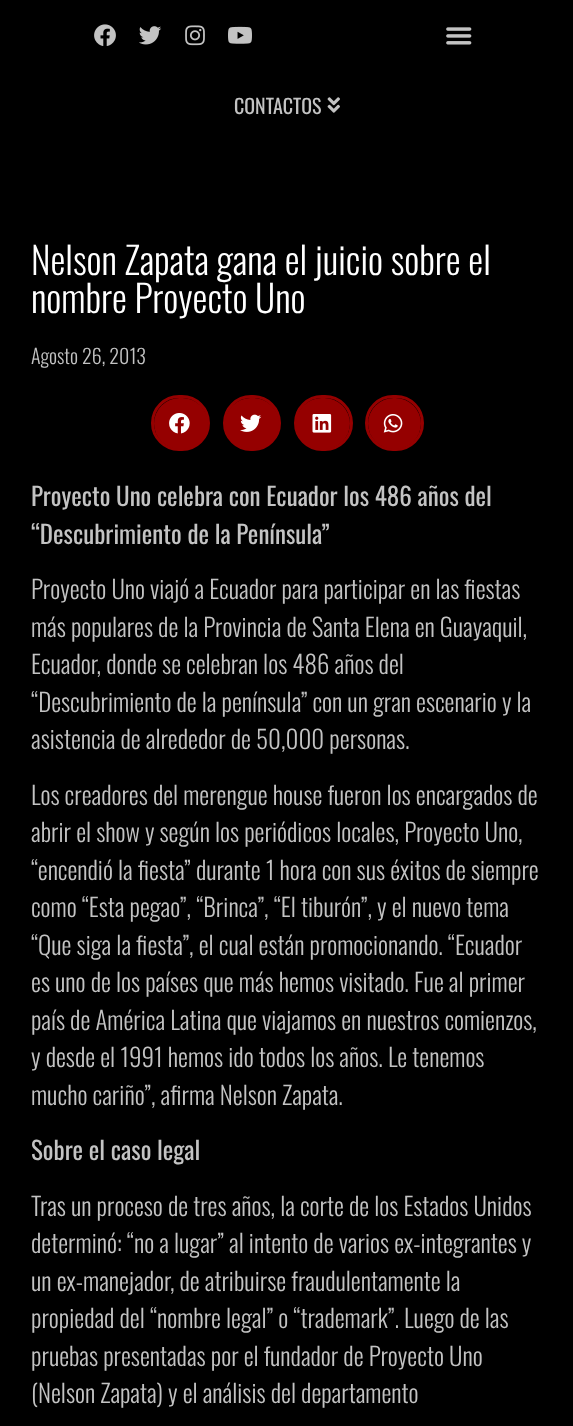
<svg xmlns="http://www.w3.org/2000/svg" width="573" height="1426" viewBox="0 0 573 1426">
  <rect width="100%" height="100%" fill="#000"/>
  <image x="94" y="24" width="22" height="22" href="img/1.png"/>
  <image x="139" y="26" width="23" height="19" href="img/2.png"/>
  <image x="185" y="25" width="20" height="21" href="img/3.png"/>
  <image x="228" y="26" width="24" height="18" href="img/4.png"/>
  <image x="446" y="27" width="26" height="18" href="img/5.png"/>
  <image x="327" y="97" width="13" height="16" href="img/6.png"/>
  <rect x="152.5" y="396.5" width="56" height="53" rx="26.5" fill="none" stroke="#950000" stroke-width="3"/>
  <rect x="154" y="398" width="54" height="51" rx="25.5" fill="#950000"/>
  <image x="169" y="413" width="21" height="21" href="img/7.png"/>
  <rect x="224.5" y="396.5" width="55" height="53" rx="26.5" fill="none" stroke="#950000" stroke-width="3"/>
  <rect x="225" y="398" width="54" height="51" rx="25.5" fill="#950000"/>
  <image x="240" y="414" width="22" height="18" href="img/8.png"/>
  <rect x="295.5" y="396.5" width="56" height="53" rx="26.5" fill="none" stroke="#950000" stroke-width="3"/>
  <rect x="296" y="398" width="54" height="51" rx="25.5" fill="#950000"/>
  <image x="312" y="414" width="20" height="19" href="img/9.png"/>
  <rect x="366.5" y="396.5" width="56" height="53" rx="26.5" fill="none" stroke="#950000" stroke-width="3"/>
  <rect x="368" y="398" width="53" height="51" rx="25.5" fill="#950000"/>
  <image x="383" y="414" width="20" height="19" href="img/10.png"/>
  <text x="234" y="114" font-family="Oswald" font-size="20" fill="#c3c3c3">CONTACTOS</text>
  <g font-family="Oswald" font-size="37.5" font-weight="300" fill="#fff">
    <text x="31" y="275">Nelson Zapata gana el juicio sobre el</text>
    <text x="31" y="313">nombre Proyecto Uno</text>
  </g>
  <text x="31" y="364" font-family="Oswald" font-size="20" font-weight="300" fill="#c3c3c3">Agosto 26, 2013</text>
  <g font-family="Oswald" font-size="25" fill="#c3c3c3">
    <text x="31" y="506">Proyecto Uno celebra con Ecuador los 486 años del</text>
    <text x="31" y="544">“Descubrimiento de la Península”</text>
  </g>
  <g font-family="Oswald" font-size="25" font-weight="300" fill="#c3c3c3">
    <text x="31" y="599">Proyecto Uno viajó a Ecuador para participar en las fiestas</text>
    <text x="31" y="637">más populares de la Provincia de Santa Elena en Guayaquil,</text>
    <text x="31" y="674">Ecuador, donde se celebran los 486 años del</text>
    <text x="31" y="712">“Descubrimiento de la península” con un gran escenario y la</text>
    <text x="31" y="749">asistencia de alrededor de 50,000 personas.</text>
    <text x="31" y="805">Los creadores del merengue house fueron los encargados de</text>
    <text x="31" y="842">abrir el show y según los periódicos locales, Proyecto Uno,</text>
    <text x="31" y="880">“encendió la fiesta” durante 1 hora con sus éxitos de siempre</text>
    <text x="31" y="917">como “Esta pegao”, “Brinca”, “El tiburón”, y el nuevo tema</text>
    <text x="31" y="955">“Que siga la fiesta”, el cual están promocionando. “Ecuador</text>
    <text x="31" y="992">es uno de los países que más hemos visitado. Fue al primer</text>
    <text x="31" y="1030">país de América Latina que viajamos en nuestros comienzos,</text>
    <text x="31" y="1067">y desde el 1991 hemos ido todos los años. Le tenemos</text>
    <text x="31" y="1105">mucho cariño”, afirma Nelson Zapata.</text>
  </g>
  <text x="31" y="1160" font-family="Oswald" font-size="25" fill="#c3c3c3">Sobre el caso legal</text>
  <g font-family="Oswald" font-size="25" font-weight="300" fill="#c3c3c3">
    <text x="31" y="1216">Tras un proceso de tres años, la corte de los Estados Unidos</text>
    <text x="31" y="1253">determinó: “no a lugar” al intento de varios ex-integrantes y</text>
    <text x="31" y="1291">un ex-manejador, de atribuirse fraudulentamente la</text>
    <text x="31" y="1328">propiedad del “nombre legal” o “trademark”. Luego de las</text>
    <text x="31" y="1366">pruebas presentadas por el fundador de Proyecto Uno</text>
    <text x="31" y="1403">(Nelson Zapata) y el análisis del departamento</text>
  </g>
</svg>
